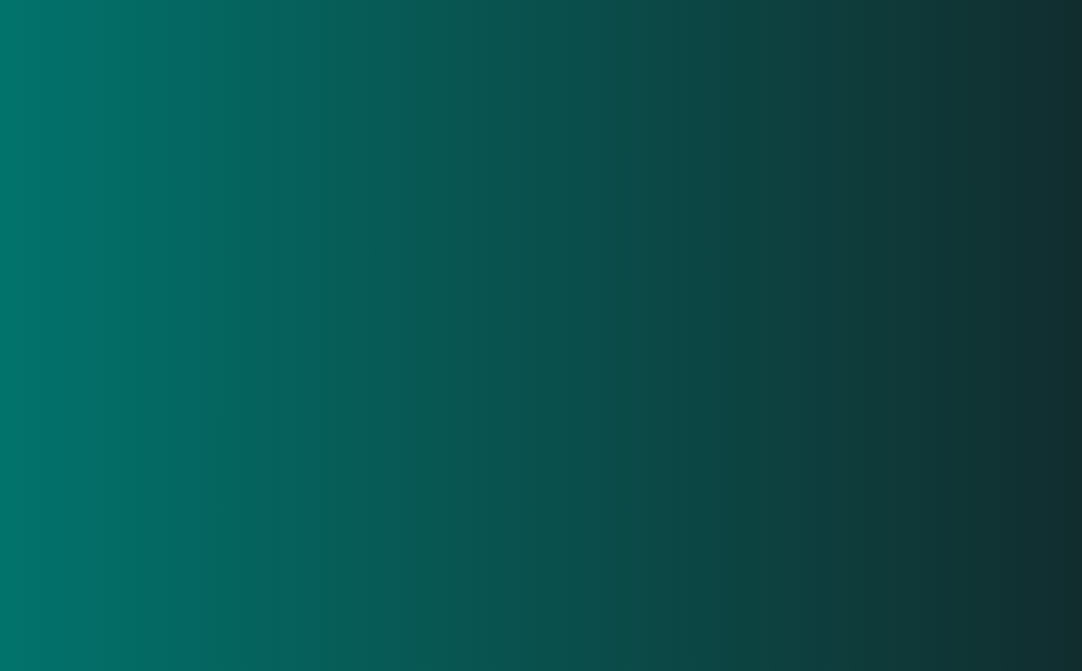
<svg xmlns="http://www.w3.org/2000/svg" width="1082" height="671" viewBox="0 0 1082 671">
  <defs>
    <linearGradient id="g1" gradientUnits="userSpaceOnUse" x1="0" y1="336" x2="1082" y2="335"><stop offset="0" stop-color="#01736b"/><stop offset="1" stop-color="#112d2e"/></linearGradient>
  </defs>
  <rect width="100%" height="100%" fill="#fff"/>
  <path d="M0 0h1082v671H0z" fill="url(#g1)"/>
</svg>
